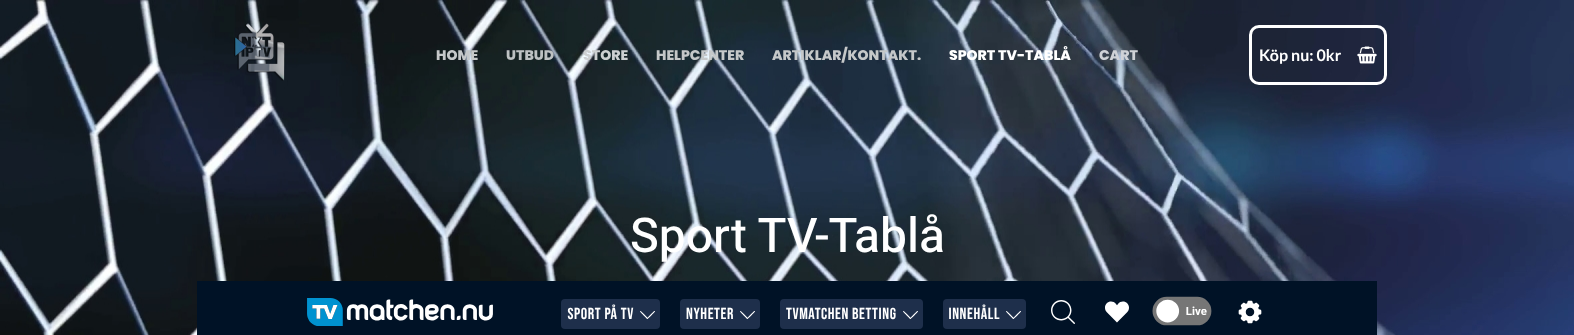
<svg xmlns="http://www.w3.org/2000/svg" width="1574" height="335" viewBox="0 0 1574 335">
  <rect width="100%" height="100%" fill="#fff"/>
  <image x="0" y="0" width="1574" height="335" href="img/1.png"/>
  <image x="0" y="1" width="1350" height="334" href="img/4.png"/>
  <image x="234" y="23" width="51" height="58" href="img/2.png"/>
  <rect x="1250.5" y="26.5" width="135" height="57" rx="8.5" fill="none" stroke="#fff" stroke-width="3"/>
  <image x="1357" y="46" width="20" height="18" href="img/3.png"/>
  <image x="197" y="281" width="1180" height="54" href="img/5.png"/>
  <text x="436" y="60" font-family="Poppins" font-size="14" font-weight="800" fill="#c5c8c9">HOME</text>
  <text x="506" y="60" font-family="Poppins" font-size="14" font-weight="800" fill="#bec2c3">UTBUD</text>
  <text x="583" y="60" font-family="Poppins" font-size="14" font-weight="800" fill="#cdd0d1">STORE</text>
  <g font-family="Poppins" font-size="14" font-weight="800" fill="#c5c8c9">
    <text x="656" y="60">HELPCENTER</text>
    <text x="772" y="60">ARTIKLAR/KONTAKT.</text>
  </g>
  <text x="949" y="60" font-family="Poppins" font-size="14" font-weight="800" fill="#fff">SPORT TV-TABLÅ</text>
  <text x="1099" y="60" font-family="Poppins" font-size="14" font-weight="800" fill="#cfd2d7">CART</text>
  <text x="1259" y="61" font-family="Lato" font-size="16" font-weight="bold" fill="#fff">Köp nu: 0kr</text>
  <text x="630" y="252" font-family="Heebo" font-size="48" font-weight="500" fill="#fff">Sport TV-Tablå</text>
</svg>
